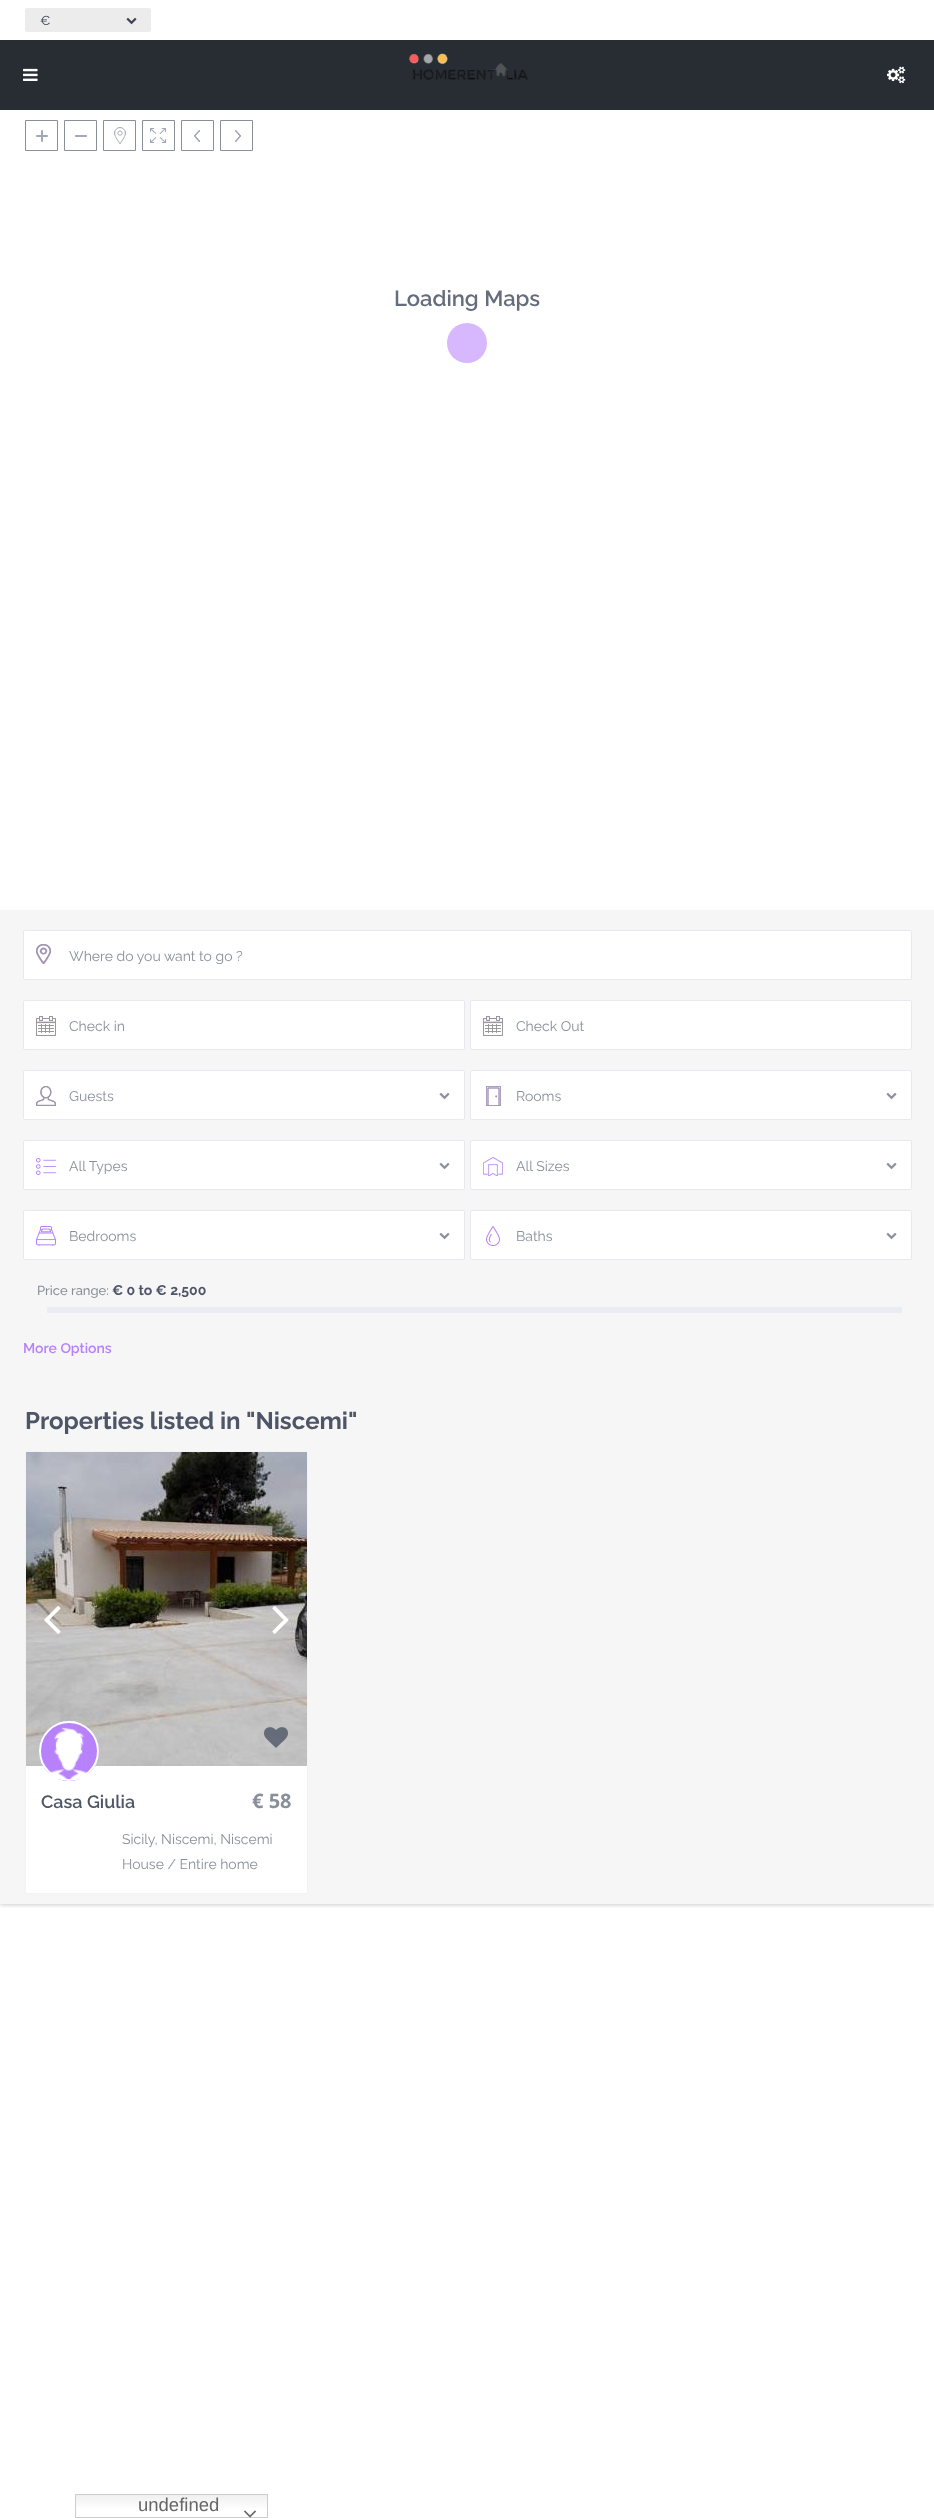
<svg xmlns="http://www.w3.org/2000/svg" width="934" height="2518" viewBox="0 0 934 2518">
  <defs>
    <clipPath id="clip1"><path d="M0 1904h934v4H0z"/></clipPath>
    <linearGradient id="g1" gradientUnits="userSpaceOnUse" x1="172" y1="2494" x2="172" y2="2518"><stop offset="0" stop-color="#efefef"/><stop offset="0.7" stop-color="#fff"/></linearGradient>
    <clipPath id="clip2"><path d="M69 948h829v16H69z"/></clipPath>
  </defs>
  <rect width="100%" height="100%" fill="#fff"/>
  <g clip-path="url(#clip1)">
    <path d="M0 1h934v1904H0z" fill="#00000033" filter="blur(2px)"/>
  </g>
  <rect x="25" y="8" width="126" height="24" rx="2" fill="#ececec"/>
  <image x="126" y="17" width="11" height="8" href="img/1.png"/>
  <path d="M76 2495h191v13H76z" fill="url(#g1)"/>
  <path d="M75.5 2494.5h192v23H75.5z" fill="none" stroke="#ccc"/>
  <image x="244" y="2510" width="12" height="8" href="img/2.png"/>
  <path d="M0 40h934v70H0z" fill="#282d33"/>
  <image x="23" y="68" width="15" height="13" href="img/3.png"/>
  <image x="409" y="53" width="119" height="27" href="img/4.png"/>
  <image x="887" y="66" width="19" height="18" href="img/5.png"/>
  <image x="36" y="130" width="12" height="12" href="img/6.png"/>
  <path d="M25.5 120.5h32v30H25.5z" fill="none" stroke="#8a8f9a"/>
  <image x="75" y="135" width="12" height="2" href="img/7.png"/>
  <path d="M64.5 120.5h32v30H64.5z" fill="none" stroke="#8a8f9a"/>
  <image x="114" y="127" width="12" height="17" href="img/8.png"/>
  <path d="M103.5 120.5h32v30H103.5z" fill="none" stroke="#8a8f9a"/>
  <image x="150" y="128" width="16" height="15" href="img/9.png"/>
  <path d="M142.5 120.5h32v30H142.5z" fill="none" stroke="#8a8f9a"/>
  <image x="194" y="130" width="6" height="12" href="img/10.png"/>
  <path d="M181.5 120.5h32v30H181.5z" fill="none" stroke="#8a8f9a"/>
  <image x="235" y="130" width="6" height="12" href="img/11.png"/>
  <path d="M220.5 120.5h32v30H220.5z" fill="none" stroke="#8a8f9a"/>
  <circle cx="467" cy="343" r="20" fill="#d7b7fd"/>
  <path d="M0 910h934v994H0z" fill="#f6f6f6"/>
  <rect x="23.5" y="930.5" width="888" height="49" rx="1.5" fill="#fff" stroke="#e7e9ef"/>
  <image x="36" y="944" width="15" height="20" href="img/12.png"/>
  <rect x="23.5" y="1000.5" width="441" height="49" rx="1.5" fill="#fff" stroke="#e7e9ef"/>
  <image x="36" y="1016" width="20" height="20" href="img/13.png"/>
  <rect x="470.5" y="1000.5" width="441" height="49" rx="1.5" fill="#fff" stroke="#e7e9ef"/>
  <image x="483" y="1016" width="20" height="20" href="img/13.png"/>
  <rect x="23.5" y="1070.5" width="441" height="49" rx="1.5" fill="#fff" stroke="#e7e9ef"/>
  <image x="36" y="1086" width="20" height="20" href="img/14.png"/>
  <image x="439" y="1093" width="11" height="7" href="img/15.png"/>
  <rect x="470.5" y="1070.5" width="441" height="49" rx="1.5" fill="#fff" stroke="#e7e9ef"/>
  <image x="486" y="1086" width="15" height="20" href="img/16.png"/>
  <image x="886" y="1093" width="11" height="7" href="img/15.png"/>
  <rect x="23.5" y="1140.5" width="441" height="49" rx="1.5" fill="#fff" stroke="#e7e9ef"/>
  <image x="36" y="1158" width="20" height="17" href="img/17.png"/>
  <image x="439" y="1163" width="11" height="7" href="img/15.png"/>
  <rect x="470.5" y="1140.5" width="441" height="49" rx="1.5" fill="#fff" stroke="#e7e9ef"/>
  <image x="483" y="1157" width="20" height="19" href="img/18.png"/>
  <image x="886" y="1163" width="11" height="7" href="img/15.png"/>
  <rect x="23.5" y="1210.5" width="441" height="49" rx="1.5" fill="#fff" stroke="#e7e9ef"/>
  <image x="36" y="1226" width="20" height="20" href="img/19.png"/>
  <image x="439" y="1233" width="11" height="7" href="img/15.png"/>
  <rect x="470.5" y="1210.5" width="441" height="49" rx="1.5" fill="#fff" stroke="#e7e9ef"/>
  <image x="486" y="1226" width="14" height="20" href="img/20.png"/>
  <image x="886" y="1233" width="11" height="7" href="img/15.png"/>
  <path d="M47 1307h855v6H47z" fill="#e9edf3"/>
  <path d="M26 1766h281v127H26z" fill="#fff"/>
  <path d="M25.5 1451.5h282v442H25.5z" fill="none" stroke="#f1f3f7"/>
  <image x="26" y="1452" width="281" height="314" href="img/21.png"/>
  <image x="44" y="1606" width="17" height="28" href="img/22.png"/>
  <image x="272" y="1606" width="17" height="28" href="img/23.png"/>
  <image x="39" y="1721" width="60" height="60" href="img/24.png"/>
  <circle cx="69" cy="1751" r="29" fill="none" stroke="#fff" stroke-width="2"/>
  <image x="264" y="1727" width="24" height="21" href="img/25.png"/>
  <text x="40" y="25" font-family="Raleway" font-size="13" fill="#3e4453">€</text>
  <text x="138" y="2511" font-family="Liberation Sans" font-size="18.5" fill="#666">undefined</text>
  <text x="394" y="306" font-family="Raleway" font-size="22" font-weight="600" fill="#656c7c">Loading Maps</text>
  <g clip-path="url(#clip2)">
    <text x="69" y="961" font-family="Raleway" font-size="14" fill="#8a8f9a">Where do you want to go ?</text>
  </g>
  <g font-family="Raleway" font-size="14" fill="#8a8f9a">
    <text x="69" y="1031">Check in</text>
    <text x="516" y="1031">Check Out</text>
    <text x="69" y="1101">Guests</text>
    <text x="516" y="1101">Rooms</text>
    <text x="69" y="1171">All Types</text>
    <text x="516" y="1171">All Sizes</text>
    <text x="69" y="1241">Bedrooms</text>
    <text x="516" y="1241">Baths</text>
  </g>
  <text x="37" y="1295" font-family="Raleway" font-size="13" font-weight="500" fill="#8a8f9a">Price range:</text>
  <text x="112" y="1295" font-family="Raleway" font-size="14" font-weight="bold" fill="#4d5567">€ 0 to € 2,500</text>
  <text x="23" y="1353" font-family="Raleway" font-size="14" font-weight="600" fill="#b881fc">More Options</text>
  <text x="25" y="1429" font-family="Raleway" font-size="24" font-weight="bold" fill="#4d5567">Properties listed in "Niscemi"</text>
  <text x="252" y="1808" font-family="Open Sans" font-size="20" font-weight="bold" fill="#8a8f9a">€ 58</text>
  <text x="41" y="1808" font-family="Raleway" font-size="18" font-weight="600" fill="#4d5567">Casa Giulia</text>
  <g font-family="Raleway" font-size="14" fill="#8a8f9a">
    <text x="122" y="1844">Sicily, Niscemi, Niscemi</text>
    <text x="122" y="1869">House / Entire home</text>
  </g>
</svg>
